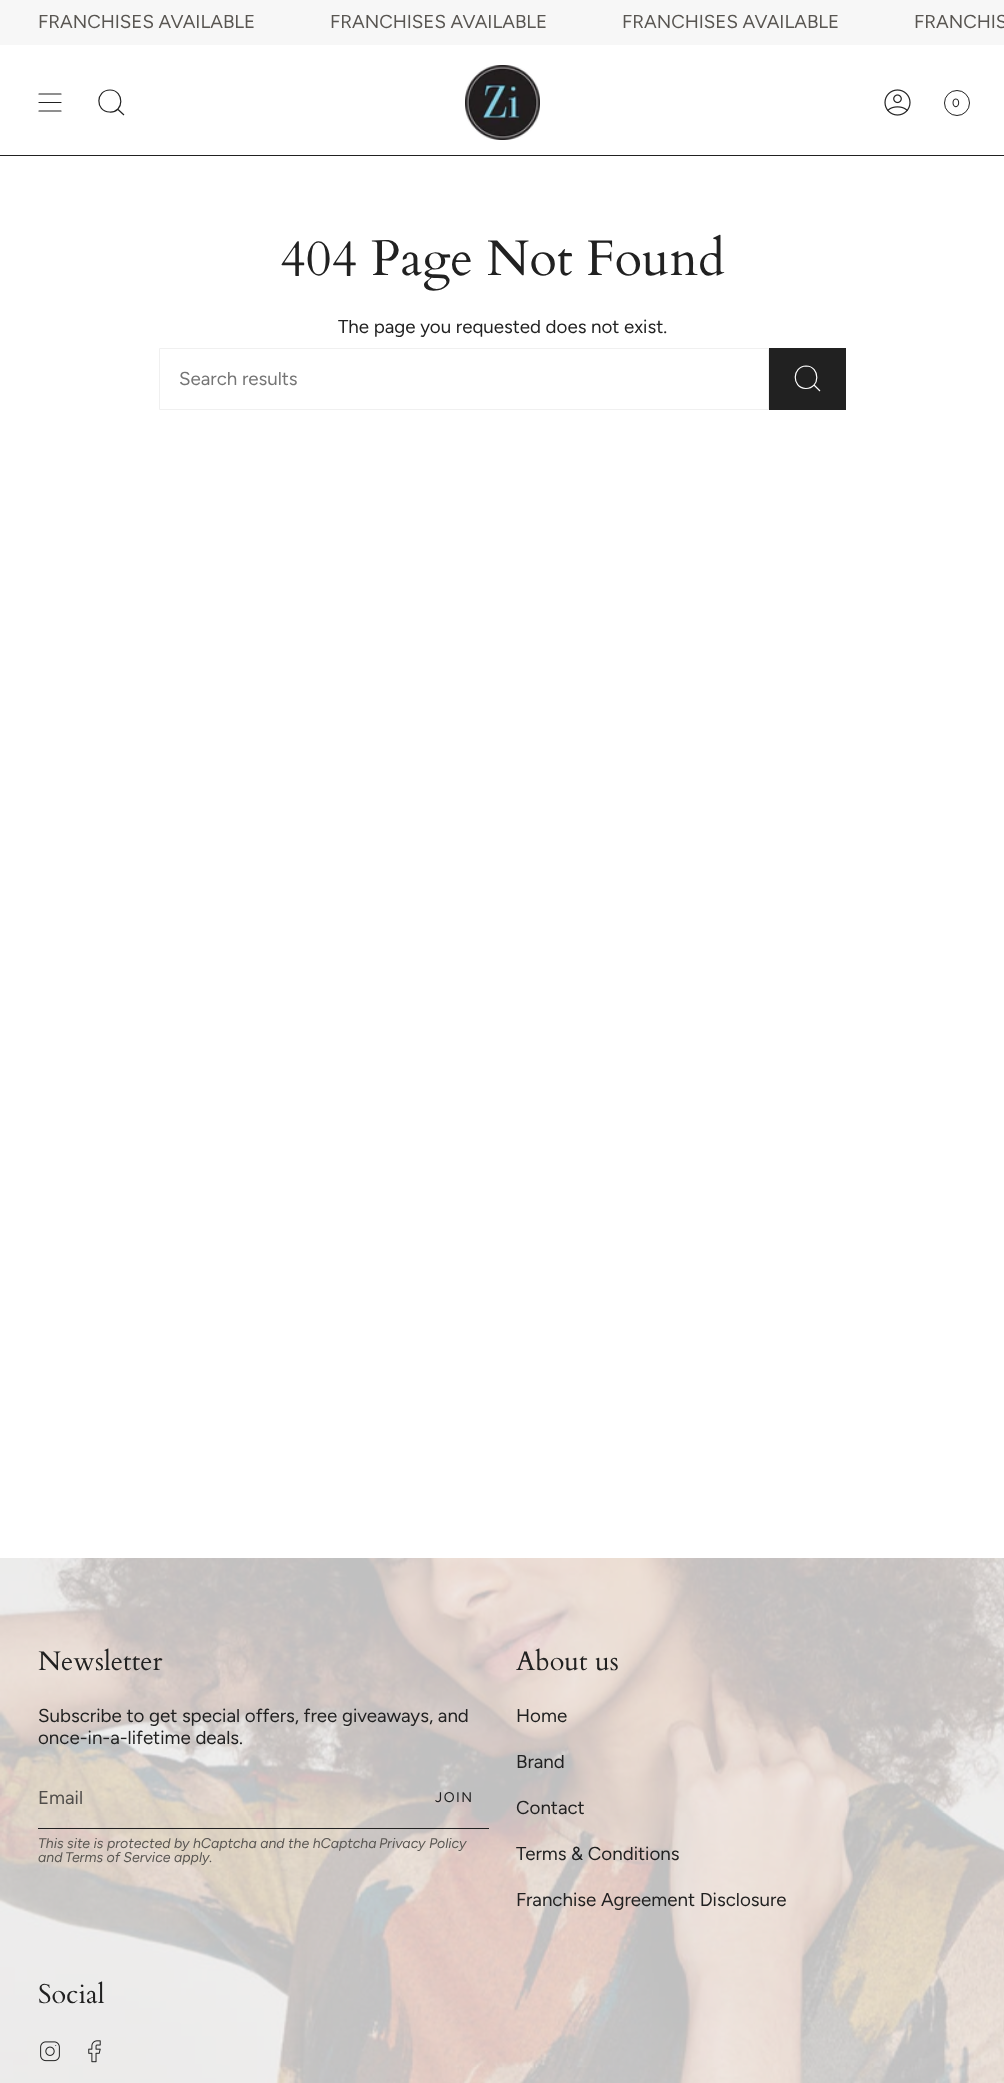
<svg xmlns="http://www.w3.org/2000/svg" width="1004" height="2083" viewBox="0 0 1004 2083">
  <rect width="100%" height="100%" fill="#fff"/>
  <path d="M0 0h1004v45H0z" fill="#f7f7f7"/>
  <path d="M39 94H61M39 102.5H61M39 111H61" fill="none" stroke="#212121" stroke-width="1.2" stroke-linecap="round" stroke-linejoin="round"/>
  <path d="M110 90C124.5 90 124.5 113 109.5 112C95 111.5 95.5 90 110 90ZM117.5 109L124 115" fill="none" stroke="#212121" stroke-width="1.2"/>
  <image x="465" y="65" width="75" height="75" href="img/1.png"/>
  <image x="884" y="89" width="27" height="27" href="img/2.png"/>
  <circle cx="957" cy="103" r="12.5" fill="none" stroke="#212121"/>
  <path d="M0 155h1004v1H0z" fill="#212121"/>
  <path d="M159.5 348.5h609v61H159.5z" fill="none" stroke="#f0f0f0"/>
  <path d="M769 348h77v62H769z" fill="#212121"/>
  <path d="M806 366C820.5 366 820.5 389 805.5 388.5C791.5 387.5 792 366.5 806 366ZM814 385L820 391" fill="none" stroke="#fff" stroke-width="1.2"/>
  <image x="0" y="1558" width="1004" height="525" href="img/3.png"/>
  <path d="M38 1828h451v1H38z" fill="#212121"/>
  <image x="40" y="2041" width="20" height="21" href="img/4.png"/>
  <image x="88" y="2040" width="13" height="23" href="img/5.png"/>
  <g font-family="Figtree" font-size="18.75" fill="#595652">
    <text x="38" y="28">FRANCHISES AVAILABLE</text>
    <text x="330" y="28">FRANCHISES AVAILABLE</text>
    <text x="622" y="28">FRANCHISES AVAILABLE</text>
    <text x="914" y="28">FRANCHIS</text>
  </g>
  <text x="952" y="107" font-family="Figtree" font-size="12" fill="#212121">0</text>
  <text x="280" y="275" font-family="Cardo" font-size="50.25" fill="#212121">404 Page Not Found</text>
  <text x="338" y="333" font-family="Figtree" font-size="18.75" fill="#212121">The page you requested does not exist.</text>
  <text x="179" y="385" font-family="Figtree" font-size="18.75" fill="#757575">Search results</text>
  <text x="38" y="1670" font-family="Cardo" font-size="27" fill="#212121">Newsletter</text>
  <g font-family="Figtree" font-size="18.75" fill="#212121">
    <text x="38" y="1722">Subscribe to get special offers, free giveaways, and</text>
    <text x="38" y="1744">once-in-a-lifetime deals.</text>
  </g>
  <text x="38" y="1804" font-family="Figtree" font-size="18.75" fill="#504d4a">Email</text>
  <text x="435" y="1802" font-family="Figtree" font-size="14" letter-spacing="1.5" fill="#212121">JOIN</text>
  <g font-family="Figtree" font-size="14.1" font-style="italic" fill="#595652">
    <text x="38" y="1848">This site is protected by hCaptcha and the hCaptcha</text>
    <text x="379" y="1848">Privacy Policy</text>
    <text x="38" y="1862">and</text>
    <text x="65" y="1862">Terms of Service</text>
    <text x="174" y="1862">apply.</text>
  </g>
  <text x="516" y="1670" font-family="Cardo" font-size="27" fill="#212121">About us</text>
  <g font-family="Figtree" font-size="18.75" fill="#212121">
    <text x="516" y="1722">Home</text>
    <text x="516" y="1768">Brand</text>
    <text x="516" y="1814">Contact</text>
    <text x="516" y="1860">Terms &amp; Conditions</text>
    <text x="516" y="1906">Franchise Agreement Disclosure</text>
  </g>
  <text x="38" y="2003" font-family="Cardo" font-size="27" fill="#212121">Social</text>
</svg>
